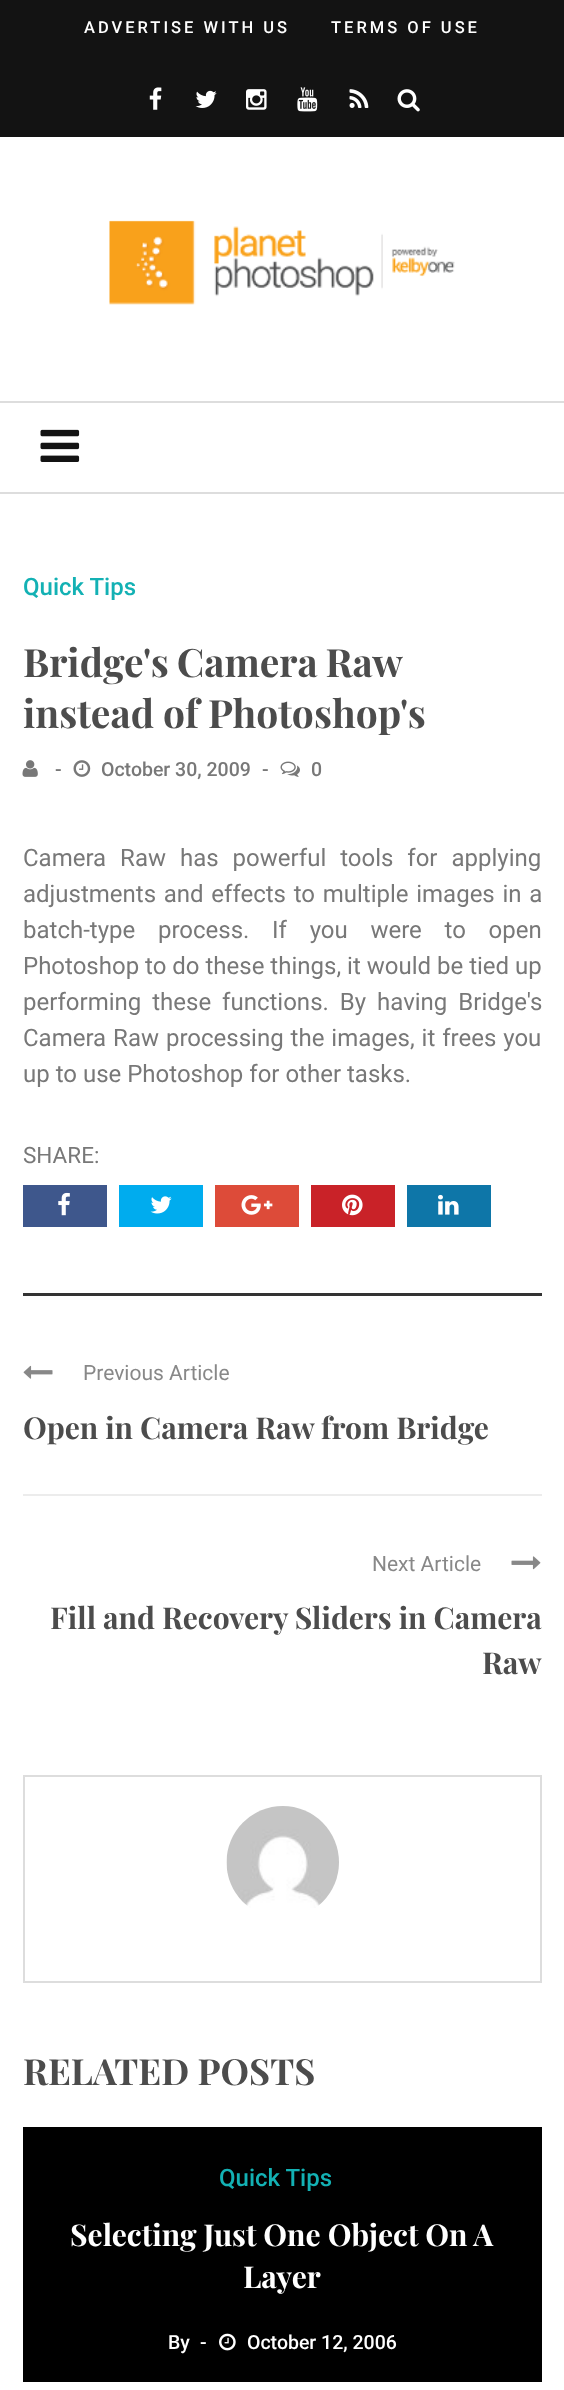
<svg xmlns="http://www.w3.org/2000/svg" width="564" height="2390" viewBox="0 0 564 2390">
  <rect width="100%" height="100%" fill="#fff"/>
  <path d="M0 0h564v137H0z" fill="#131313"/>
  <image x="149" y="87" width="13" height="23" href="img/1.png"/>
  <image x="195" y="90" width="22" height="18" href="img/2.png"/>
  <image x="246" y="89" width="21" height="21" href="img/3.png"/>
  <image x="297" y="87" width="21" height="25" href="img/4.png"/>
  <image x="349" y="89" width="20" height="19" href="img/5.png"/>
  <image x="397" y="89" width="23" height="23" href="img/6.png"/>
  <image x="109" y="220" width="346" height="85" href="img/7.png"/>
  <path d="M0 401h564v2H0z" fill="#ddd"/>
  <path d="M0 492h564v2H0z" fill="#ddd"/>
  <image x="40" y="429" width="40" height="33" href="img/8.png"/>
  <image x="22" y="760" width="16" height="17" href="img/9.png"/>
  <image x="73" y="760" width="18" height="17" href="img/10.png"/>
  <image x="280" y="761" width="20" height="16" href="img/11.png"/>
  <path d="M23 1185h84v42H23z" fill="#3e578c"/>
  <image x="58" y="1192" width="12" height="24" href="img/12.png"/>
  <path d="M119 1185h84v42H119z" fill="#00acee"/>
  <image x="150" y="1196" width="22" height="18" href="img/13.png"/>
  <path d="M215 1185h84v42H215z" fill="#dd4b39"/>
  <image x="241" y="1195" width="32" height="20" href="img/14.png"/>
  <path d="M311 1185h84v42H311z" fill="#c92228"/>
  <image x="342" y="1194" width="21" height="22" href="img/15.png"/>
  <path d="M407 1185h84v42H407z" fill="#0e76a8"/>
  <image x="438" y="1194" width="21" height="21" href="img/16.png"/>
  <path d="M23 1293h519v3H23z" fill="#333"/>
  <image x="23" y="1365" width="30" height="14" href="img/17.png"/>
  <path d="M23 1494h519v2H23z" fill="#ececec"/>
  <image x="511" y="1556" width="30" height="14" href="img/18.png"/>
  <path d="M24 1776h517v206H24z" fill="none" stroke="#ddd" stroke-width="2"/>
  <image x="226" y="1806" width="113" height="102" href="img/19.png"/>
  <path d="M23 2127h519v255H23z" fill="#000"/>
  <image x="219" y="2333" width="17" height="18" href="img/20.png"/>
  <g font-family="Roboto" font-size="16.5" font-weight="500" letter-spacing="3" fill="#fff">
    <text x="84" y="33">ADVERTISE WITH US</text>
    <text x="331" y="33">TERMS OF USE</text>
  </g>
  <text x="23" y="595" font-family="Roboto" font-size="24" font-weight="500" fill="#13b1b4">Quick Tips</text>
  <g font-family="Playfair Display" font-size="39" font-weight="bold" fill="#4c4c4c">
    <text x="23" y="677" word-spacing="-1">Bridge's Camera Raw</text>
    <text x="23" y="728">instead of Photoshop's</text>
  </g>
  <g font-family="Roboto" font-size="19.5" font-weight="500" fill="#787878">
    <text x="55" y="776">-</text>
    <text x="101" y="776">October 30, 2009</text>
    <text x="262" y="776">-</text>
    <text x="311" y="776">0</text>
  </g>
  <g font-family="Roboto" font-size="24" fill="#787878">
    <text x="23" y="866" word-spacing="8">Camera Raw has powerful tools for applying</text>
    <text x="23" y="902" word-spacing="1.75">adjustments and effects to multiple images in a</text>
    <text x="23" y="938" word-spacing="16.75">batch-type process. If you were to open</text>
    <text x="23" y="974">Photoshop to do these things, it would be tied up</text>
    <text x="23" y="1010" word-spacing="5">performing these functions. By having Bridge's</text>
    <text x="23" y="1046" word-spacing="1">Camera Raw processing the images, it frees you</text>
    <text x="23" y="1082">up to use Photoshop for other tasks.</text>
  </g>
  <text x="23" y="1163" font-family="Roboto" font-size="22.5" fill="#787878">SHARE:</text>
  <text x="83" y="1380" font-family="Roboto" font-size="21" fill="#888">Previous Article</text>
  <text x="23" y="1439" font-family="Playfair Display" font-size="30" font-weight="bold" fill="#4c4c4c">Open in Camera Raw from Bridge</text>
  <text x="372" y="1571" font-family="Roboto" font-size="21" fill="#888">Next Article</text>
  <g font-family="Playfair Display" font-size="30" font-weight="bold" fill="#4c4c4c">
    <text x="50" y="1629">Fill and Recovery Sliders in Camera</text>
    <text x="482" y="1674">Raw</text>
  </g>
  <text x="23" y="2085" font-family="Playfair Display" font-size="36" font-weight="bold" fill="#4c4c4c">RELATED POSTS</text>
  <text x="219" y="2186" font-family="Roboto" font-size="24" font-weight="500" fill="#13b1b4">Quick Tips</text>
  <g font-family="Playfair Display" font-size="30" font-weight="bold" fill="#fff">
    <text x="70" y="2246">Selecting Just One Object On A</text>
    <text x="243" y="2288">Layer</text>
  </g>
  <g font-family="Roboto" font-size="19.5" font-weight="500" fill="#fff">
    <text x="168" y="2349">By</text>
    <text x="200" y="2349">-</text>
    <text x="247" y="2349">October 12, 2006</text>
  </g>
</svg>
